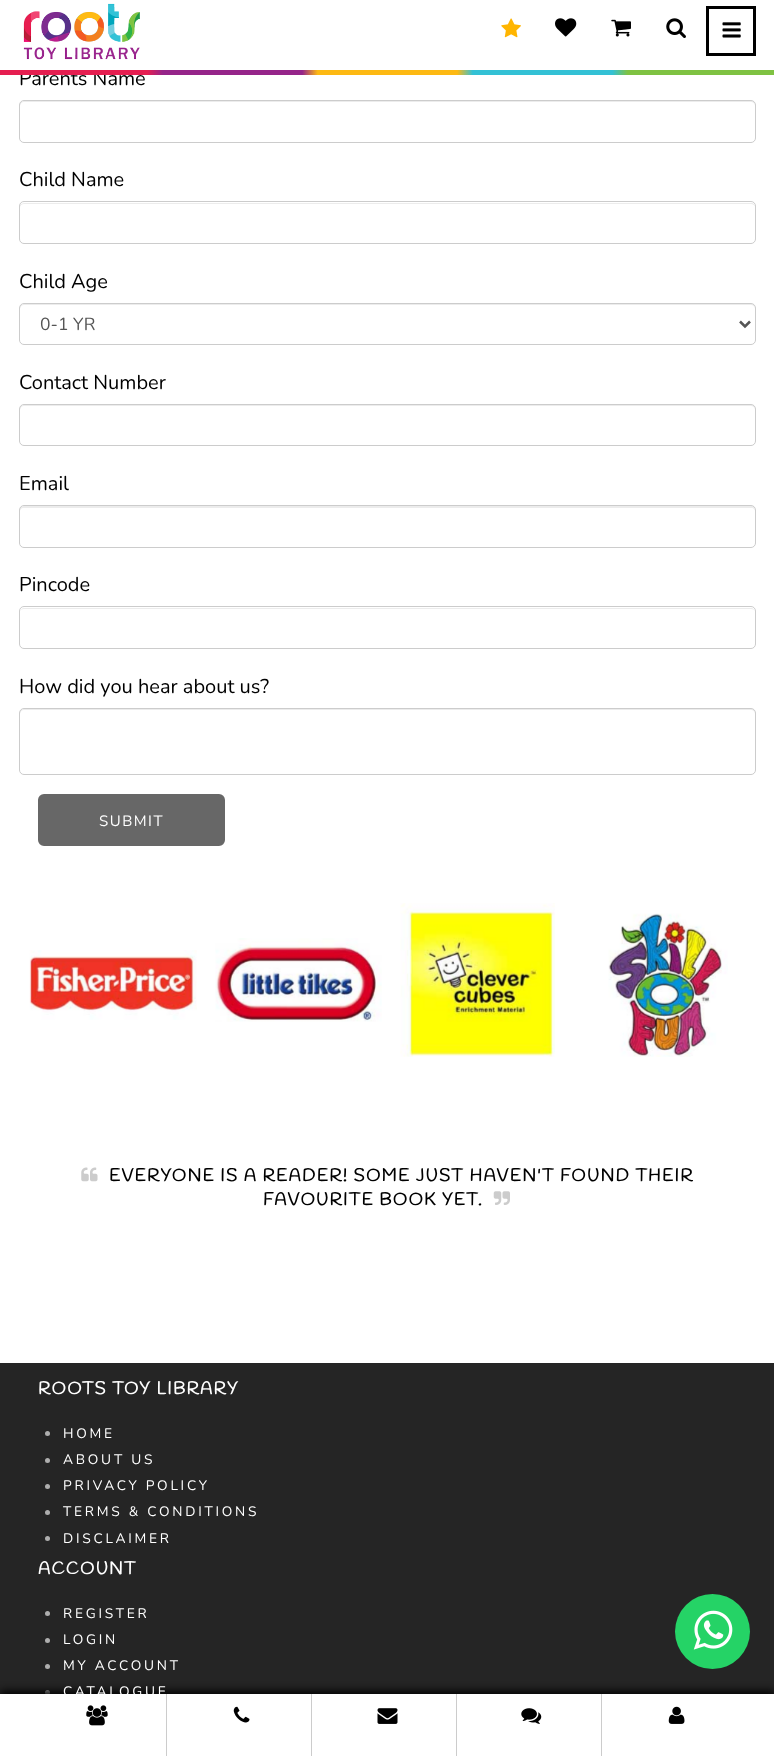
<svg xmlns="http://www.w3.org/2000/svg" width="774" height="1756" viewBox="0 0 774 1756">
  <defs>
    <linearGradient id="g1" gradientUnits="userSpaceOnUse" x1="0" y1="73" x2="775" y2="72"><stop offset="0" stop-color="#e51e50"/><stop offset="0.19" stop-color="#e51e50"/><stop offset="0.21" stop-color="#952489"/><stop offset="0.39" stop-color="#952489"/><stop offset="0.41" stop-color="#fdb913"/><stop offset="0.59" stop-color="#fdb913"/><stop offset="0.61" stop-color="#33c1d5"/><stop offset="0.79" stop-color="#33c1d5"/><stop offset="0.81" stop-color="#7fc242"/></linearGradient>
  </defs>
  <rect width="100%" height="100%" fill="#fff"/>
  <image x="23" y="3" width="117" height="57" href="img/1.png"/>
  <image x="501" y="18" width="20" height="20" href="img/2.png"/>
  <image x="555" y="18" width="22" height="19" href="img/3.png"/>
  <image x="611" y="19" width="20" height="18" href="img/4.png"/>
  <image x="666" y="18" width="20" height="20" href="img/5.png"/>
  <path d="M707.5 7.5h47v47H707.5z" fill="none" stroke="#000" stroke-width="3"/>
  <image x="722" y="22" width="19" height="16" href="img/6.png"/>
  <path d="M24 102H751C753 102 755 104 755 106C755 103 754 101 751 101H24L21 102L20 103V106C20 104 22 102 24 102Z" fill="#ececec"/>
  <rect x="19.5" y="100.5" width="736" height="42" rx="4.5" fill="none" stroke="#ccc"/>
  <path d="M24 204H751C753 204 755 205 755 208C755 205 754 203 751 203H24L21 204L20 205V208C20 205 22 204 24 204Z" fill="#ececec"/>
  <rect x="19.5" y="201.5" width="736" height="42" rx="4.5" fill="none" stroke="#ccc"/>
  <path d="M24 305H751C753 305 755 307 755 309C755 306 754 304 751 304H24L21 305L20 306V309C20 307 22 305 24 305Z" fill="#ececec"/>
  <rect x="19.5" y="303.5" width="736" height="41" rx="4.5" fill="none" stroke="#ccc"/>
  <path d="M740 321.5L745 326.5L750 321.5" fill="none" stroke="#555" stroke-width="2.5"/>
  <path d="M24 406H751C753 406 755 408 755 410C755 407 754 405 751 405H24L21 406L20 407V410C20 408 22 406 24 406Z" fill="#ececec"/>
  <rect x="19.5" y="404.5" width="736" height="41" rx="4.5" fill="none" stroke="#ccc"/>
  <path d="M24 508H751C753 508 755 509 755 511C755 508 754 506 751 506H24L21 507L20 508V511C20 509 22 508 24 508Z" fill="#ececec"/>
  <rect x="19.5" y="505.5" width="736" height="42" rx="4.5" fill="none" stroke="#ccc"/>
  <path d="M24 609H751C753 609 755 610 755 612C755 610 753 608 751 608H24C22 608 20 610 20 612C20 610 22 609 24 609Z" fill="#ececec"/>
  <rect x="19.5" y="606.5" width="736" height="42" rx="4.5" fill="none" stroke="#ccc"/>
  <path d="M24 710H751C753 710 755 712 755 714C755 711 754 709 751 709H24L21 710L20 711V714C20 712 22 710 24 710Z" fill="#ececec"/>
  <rect x="19.5" y="708.5" width="736" height="66" rx="4.5" fill="none" stroke="#ccc"/>
  <rect x="39.5" y="795.5" width="184" height="49" rx="4.5" fill="#676767" stroke="#676767" stroke-width="3"/>
  <image x="29" y="950" width="168" height="70" href="img/7.png"/>
  <image x="215" y="938" width="167" height="84" href="img/8.png"/>
  <image x="400" y="903" width="155" height="154" href="img/9.png"/>
  <image x="608" y="913" width="120" height="144" href="img/10.png"/>
  <image x="81" y="1167" width="17" height="15" href="img/11.png"/>
  <image x="493" y="1191" width="17" height="14" href="img/12.png"/>
  <path d="M0 1363h774v331H0z" fill="#252525"/>
  <circle cx="47.5" cy="1433.5" r="2.5" fill="#aeaeae"/>
  <circle cx="47.5" cy="1460.5" r="2.5" fill="#aeaeae"/>
  <circle cx="47.5" cy="1486.5" r="2.5" fill="#aeaeae"/>
  <circle cx="47.5" cy="1512.5" r="2.5" fill="#aeaeae"/>
  <circle cx="47.5" cy="1538.5" r="2.5" fill="#aeaeae"/>
  <circle cx="47.5" cy="1613.5" r="2.5" fill="#aeaeae"/>
  <circle cx="47.5" cy="1640.5" r="2.5" fill="#aeaeae"/>
  <circle cx="47.5" cy="1666.5" r="2.5" fill="#aeaeae"/>
  <circle cx="47.5" cy="1692.5" r="2.5" fill="#aeaeae"/>
  <path d="M0 1691h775v63H0z" fill="#000" filter="blur(4.5px)"/>
  <path d="M0 1694h774v62H0z" fill="#fff"/>
  <path d="M166 1694h1v62H166z" fill="#ccc"/>
  <image x="86" y="1705" width="22" height="21" href="img/13.png"/>
  <path d="M311 1694h1v62H311z" fill="#ccc"/>
  <image x="233" y="1706" width="17" height="17" href="img/14.png"/>
  <path d="M456 1694h1v62H456z" fill="#ccc"/>
  <image x="377" y="1708" width="21" height="16" href="img/15.png"/>
  <path d="M601 1694h1v62H601z" fill="#ccc"/>
  <image x="521" y="1708" width="21" height="16" href="img/16.png"/>
  <image x="668" y="1706" width="17" height="18" href="img/17.png"/>
  <circle cx="712.5" cy="1631.5" r="37.5" fill="#25d366"/>
  <image x="693" y="1610" width="40" height="40" href="img/18.png"/>
  <text x="19" y="85" font-family="Nunito" font-size="20" font-weight="200" fill="#000">Parents Name</text>
  <path d="M0 70h774v5H0z" fill="url(#g1)"/>
  <g font-family="Nunito" font-size="20" font-weight="200" fill="#000">
    <text x="19" y="186">Child Name</text>
    <text x="19" y="288">Child Age</text>
  </g>
  <text x="40" y="330" font-family="Nunito" font-size="17.5" font-weight="200" fill="#555">0-1 YR</text>
  <g font-family="Nunito" font-size="20" font-weight="200" fill="#000">
    <text x="19" y="389">Contact Number</text>
    <text x="19" y="490">Email</text>
    <text x="19" y="591">Pincode</text>
    <text x="19" y="693">How did you hear about us?</text>
  </g>
  <text x="99" y="826" font-family="Nunito" font-size="15" font-weight="200" letter-spacing="1.5" fill="#fff">SUBMIT</text>
  <g font-family="Handlee" font-size="17.5" font-weight="bold" letter-spacing="1.4" fill="#000">
    <text x="109" y="1181">EVERYONE IS A READER! SOME JUST HAVEN'T FOUND THEIR</text>
    <text x="263" y="1205">FAVOURITE BOOK YET.</text>
  </g>
  <text x="38" y="1394" font-family="Handlee" font-size="17.5" font-weight="bold" letter-spacing="1.4" fill="#fff">ROOTS TOY LIBRARY</text>
  <g font-family="Nunito" font-size="13.75" font-weight="200" letter-spacing="2.75" fill="#fff">
    <text x="63" y="1438">HOME</text>
    <text x="63" y="1464">ABOUT US</text>
    <text x="63" y="1490">PRIVACY POLICY</text>
    <text x="63" y="1516">TERMS &amp; CONDITIONS</text>
    <text x="63" y="1543">DISCLAIMER</text>
  </g>
  <text x="38" y="1574" font-family="Handlee" font-size="17.5" font-weight="bold" letter-spacing="1.4" fill="#fff">ACCOUNT</text>
  <g font-family="Nunito" font-size="13.75" font-weight="200" letter-spacing="2.75" fill="#fff">
    <text x="63" y="1618">REGISTER</text>
    <text x="63" y="1644">LOGIN</text>
    <text x="63" y="1670">MY ACCOUNT</text>
    <text x="63" y="1696">CATALOGUE</text>
  </g>
</svg>
